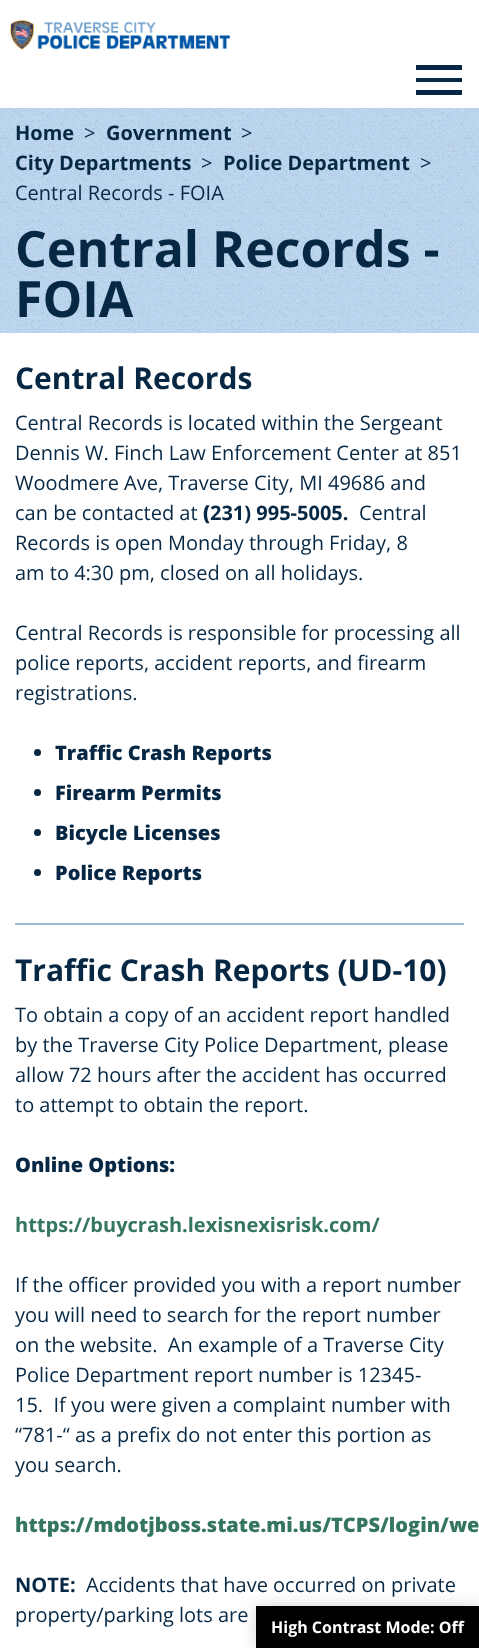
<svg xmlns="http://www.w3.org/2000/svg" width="479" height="1648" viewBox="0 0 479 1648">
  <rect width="100%" height="100%" fill="#fff"/>
  <image x="10" y="20" width="220" height="30" href="img/1.png"/>
  <path d="M416 65H462V70H416ZM416 82V78H462V82ZM416 95V90H462V95Z" fill="#072844"/>
  <image x="0" y="108" width="479" height="225" href="img/2.png"/>
  <circle cx="37.5" cy="752.5" r="3.5" fill="#072844"/>
  <circle cx="37.5" cy="792.5" r="3.5" fill="#072844"/>
  <circle cx="37.5" cy="832.5" r="3.5" fill="#072844"/>
  <circle cx="37.5" cy="872.5" r="3.5" fill="#072844"/>
  <path d="M15 923h449v2H15z" fill="#9ebcd9"/>
  <path d="M256 1606h223v42H256z" fill="#a8a8a880" filter="blur(7.5px)"/>
  <path d="M256 1606h223v42H256z" fill="#000"/>
  <text x="15" y="140" font-family="Open Sans" font-size="20" font-weight="bold" fill="#072844">Home</text>
  <text x="84" y="140" font-family="Open Sans" font-size="20" fill="#072844">&gt;</text>
  <text x="106" y="140" font-family="Open Sans" font-size="20" font-weight="bold" fill="#072844">Government</text>
  <text x="241" y="140" font-family="Open Sans" font-size="20" fill="#072844">&gt;</text>
  <text x="15" y="170" font-family="Open Sans" font-size="20" font-weight="bold" fill="#072844">City Departments</text>
  <text x="201" y="170" font-family="Open Sans" font-size="20" fill="#072844">&gt;</text>
  <text x="223" y="170" font-family="Open Sans" font-size="20" font-weight="bold" fill="#072844">Police Department</text>
  <g font-family="Open Sans" font-size="20" fill="#072844">
    <text x="420" y="170">&gt;</text>
    <text x="15" y="200">Central Records - FOIA</text>
  </g>
  <g font-family="Open Sans" font-size="50" font-weight="bold" fill="#072844">
    <text x="15" y="267">Central Records -</text>
    <text x="15" y="317">FOIA</text>
  </g>
  <text x="15" y="389" font-family="Open Sans" font-size="30" font-weight="bold" fill="#072844">Central Records</text>
  <g font-family="Open Sans" font-size="20" fill="#072844">
    <text x="15" y="430">Central Records is located within the Sergeant</text>
    <text x="15" y="460">Dennis W. Finch Law Enforcement Center at 851</text>
    <text x="15" y="490">Woodmere Ave, Traverse City, MI 49686 and</text>
    <text x="15" y="520">can be contacted at</text>
  </g>
  <text x="203" y="520" font-family="Open Sans" font-size="20" font-weight="800" fill="#072844">(</text>
  <text x="210" y="520" font-family="Open Sans" font-size="20" font-weight="bold" fill="#072844">231) 995-5005.</text>
  <g font-family="Open Sans" font-size="20" fill="#072844">
    <text x="359" y="520">Central</text>
    <text x="15" y="550">Records is open Monday through Friday, 8</text>
    <text x="15" y="580">am to 4:30 pm, closed on all holidays.</text>
    <text x="15" y="640">Central Records is responsible for processing all</text>
    <text x="15" y="670">police reports, accident reports, and firearm</text>
    <text x="15" y="700">registrations.</text>
  </g>
  <g font-family="Open Sans" font-size="20" font-weight="800" fill="#072844">
    <text x="55" y="760">Traffic Crash Reports</text>
    <text x="55" y="800">Firearm Permits</text>
    <text x="55" y="840">Bicycle Licenses</text>
    <text x="55" y="880">Police Reports</text>
  </g>
  <text x="15" y="981" font-family="Open Sans" font-size="30" font-weight="bold" fill="#072844">Traffic Crash Reports (UD-10)</text>
  <g font-family="Open Sans" font-size="20" fill="#072844">
    <text x="15" y="1022">To obtain a copy of an accident report handled</text>
    <text x="15" y="1052">by the Traverse City Police Department, please</text>
    <text x="15" y="1082">allow 72 hours after the accident has occurred</text>
    <text x="15" y="1112">to attempt to obtain the report.</text>
  </g>
  <text x="15" y="1172" font-family="Open Sans" font-size="20" font-weight="800" fill="#072844">Online Options:</text>
  <text x="15" y="1232" font-family="Open Sans" font-size="20" font-weight="bold" fill="#357661">https://buycrash.lexisnexisrisk.com/</text>
  <g font-family="Open Sans" font-size="20" fill="#072844">
    <text x="15" y="1292">If the officer provided you with a report number</text>
    <text x="15" y="1322">you will need to search for the report number</text>
    <text x="15" y="1352" xml:space="preserve">on the website.  An example of a Traverse City</text>
    <text x="15" y="1382">Police Department report number is 12345-</text>
    <text x="15" y="1412" xml:space="preserve">15.  If you were given a complaint number with</text>
    <text x="15" y="1442">“781-“ as a prefix do not enter this portion as</text>
    <text x="15" y="1472">you search.</text>
  </g>
  <text x="15" y="1532" font-family="Open Sans" font-size="20" font-weight="800" fill="#357661">https://mdotjboss.state.mi.us/TCPS/login/we</text>
  <text x="15" y="1592" font-family="Open Sans" font-size="20" font-weight="bold" fill="#072844">NOTE:</text>
  <g font-family="Open Sans" font-size="20" fill="#072844">
    <text x="86" y="1592">Accidents that have occurred on private</text>
    <text x="15" y="1622">property/parking lots are</text>
  </g>
  <text x="271" y="1633" font-family="Open Sans" font-size="16" font-weight="bold" fill="#fff">High Contrast Mode: Off</text>
</svg>
